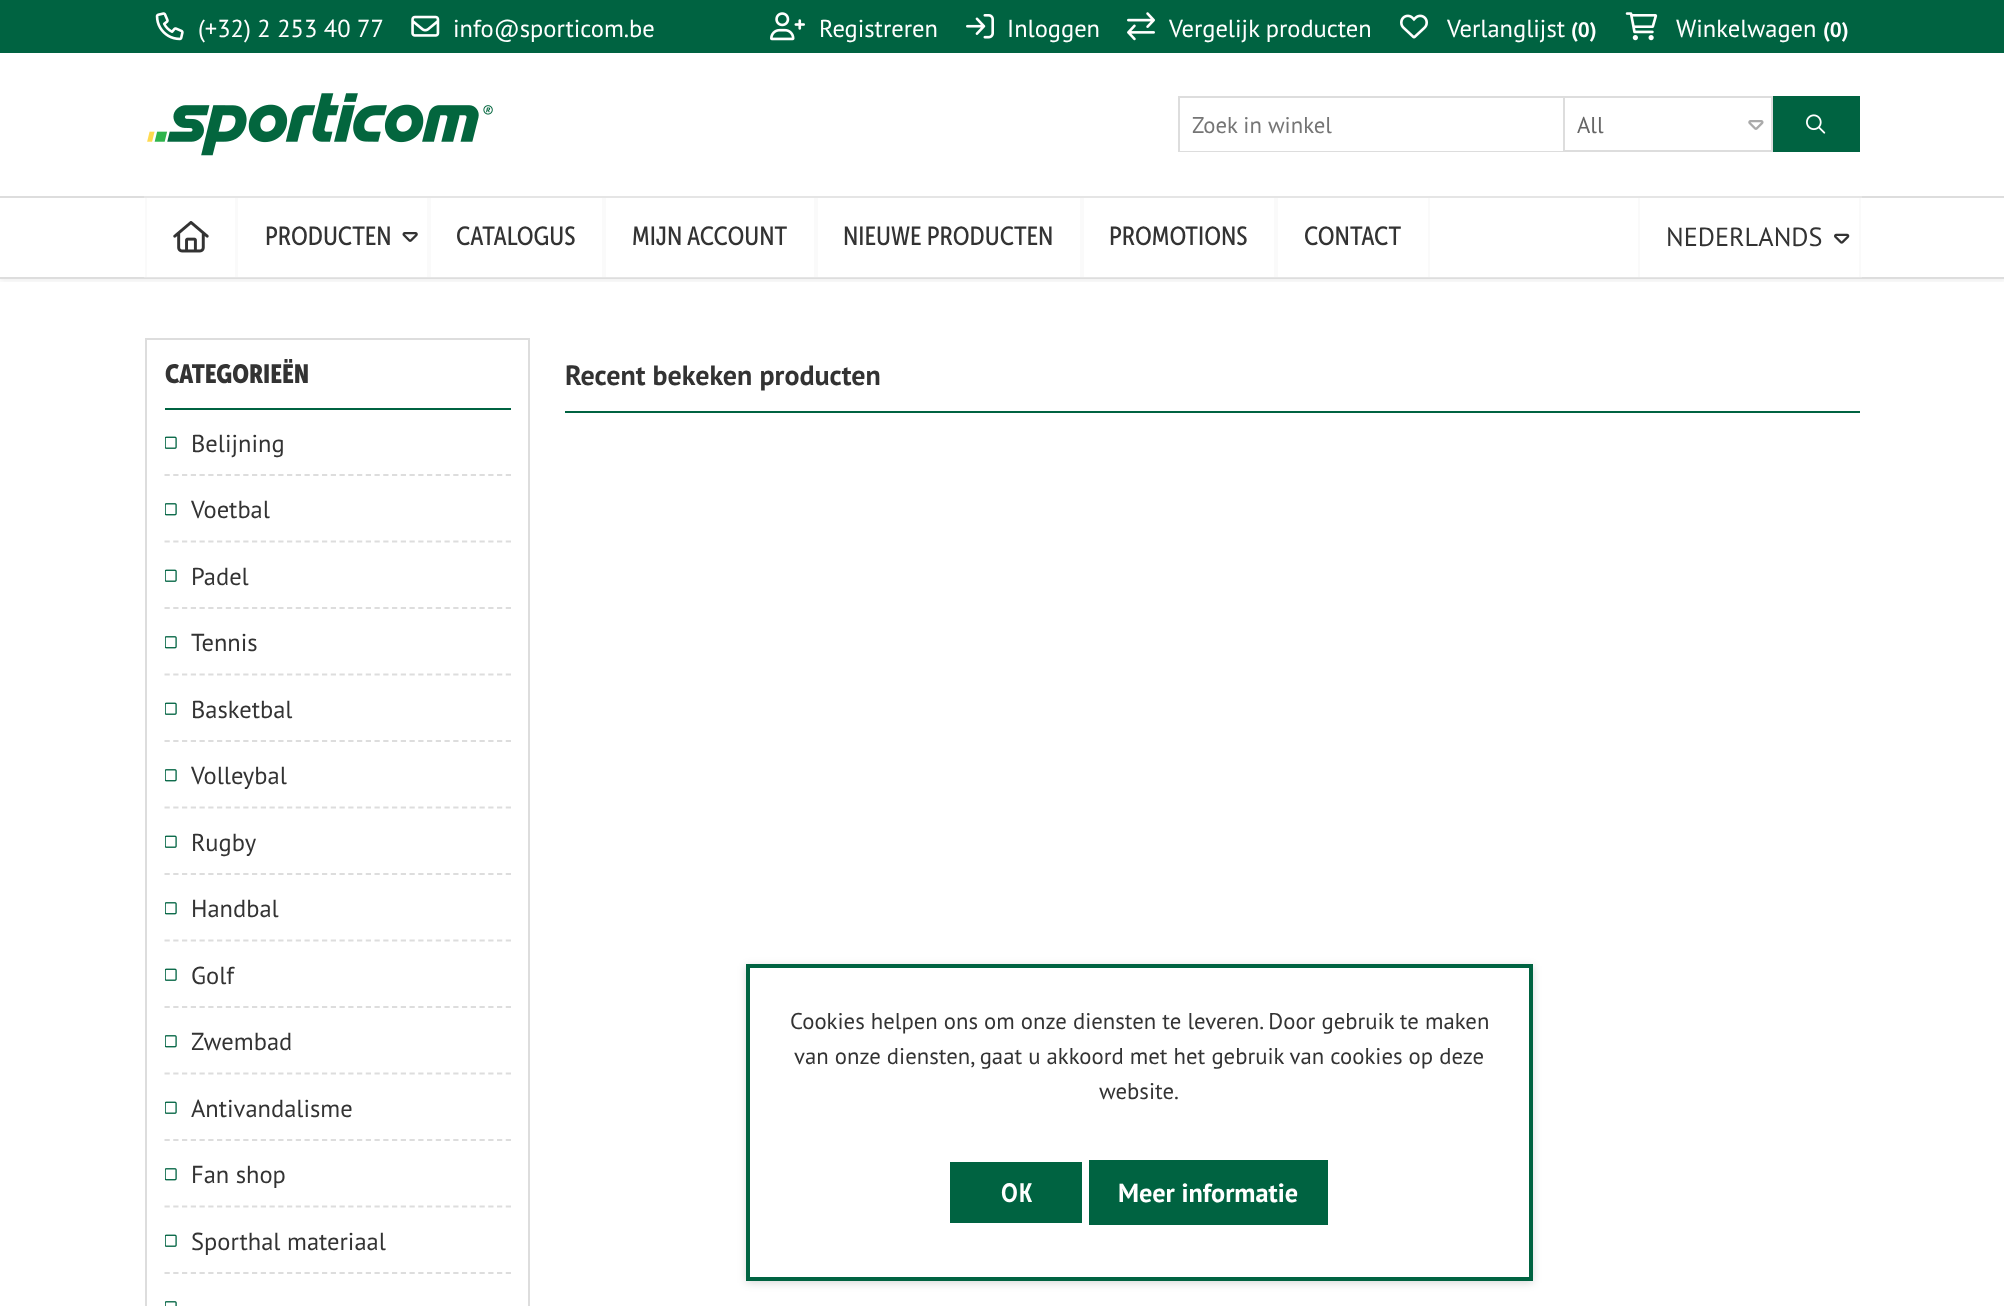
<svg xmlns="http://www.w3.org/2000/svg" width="2004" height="1306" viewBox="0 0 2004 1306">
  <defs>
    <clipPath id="clip1"><path d="M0 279h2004v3H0z"/></clipPath>
  </defs>
  <rect width="100%" height="100%" fill="#fff"/>
  <path d="M0 0h2004v53H0z" fill="#006341"/>
  <image x="155" y="12" width="29" height="29" href="img/1.png"/>
  <image x="411" y="15" width="29" height="22" href="img/2.png"/>
  <image x="770" y="12" width="35" height="29" href="img/3.png"/>
  <image x="966" y="14" width="28" height="25" href="img/4.png"/>
  <image x="1127" y="12" width="28" height="29" href="img/5.png"/>
  <image x="1400" y="14" width="28" height="25" href="img/6.png"/>
  <image x="1625" y="12" width="33" height="29" href="img/7.png"/>
  <image x="147" y="93" width="346" height="63" href="img/8.png"/>
  <path d="M1179 97h593v54H1179z" fill="none" stroke="#ddd" stroke-width="2"/>
  <path d="M1180 150h591v1H1180z" fill="#fff"/>
  <image x="1748" y="120" width="16" height="10" href="img/9.png"/>
  <path d="M1564 97h208v54H1564z" fill="none" stroke="#ddd" stroke-width="2"/>
  <path d="M1773 96h87v56H1773z" fill="#006341"/>
  <image x="1806" y="114" width="20" height="20" href="img/10.png"/>
  <g clip-path="url(#clip1)">
    <path d="M0 200h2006v82H0z" fill="#0000000d" filter="blur(2px)"/>
  </g>
  <path d="M0 196h2004v2H0z" fill="#ddd"/>
  <path d="M0 277h2004v2H0z" fill="#ddd"/>
  <path d="M145 197h1716v80H145z" fill="none" stroke="#ffffff40" stroke-width="2"/>
  <path d="M235 198h3v79H235z" fill="#fafafa"/>
  <path d="M145 198h2v79H145z" fill="#fafafa"/>
  <image x="173" y="221" width="36" height="32" href="img/11.png"/>
  <path d="M427 198h4v79H427z" fill="#fafafa"/>
  <image x="402" y="232" width="16" height="10" href="img/12.png"/>
  <path d="M602 198h4v79H602z" fill="#fafafa"/>
  <path d="M814 198h4v79H814z" fill="#fafafa"/>
  <path d="M1080 198h4v79H1080z" fill="#fafafa"/>
  <path d="M1274 198h4v79H1274z" fill="#fafafa"/>
  <path d="M1428 198h2v79H1428z" fill="#fafafa"/>
  <path d="M1859 198h2v79H1859z" fill="#fafafa"/>
  <path d="M1638 198h2v79H1638z" fill="#fafafa"/>
  <image x="1834" y="233" width="16" height="11" href="img/13.png"/>
  <path d="M146 339h383v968H146z" fill="none" stroke="#ddd" stroke-width="2"/>
  <path d="M165 408h346v2H165z" fill="#006341"/>
  <path d="M164.5 475H511" fill="none" stroke="#ddd" stroke-width="1.8" stroke-dasharray="5.25 3.5"/>
  <image x="165" y="436" width="12" height="13" href="img/14.png"/>
  <path d="M164.5 541.5H511" fill="none" stroke="#ddd" stroke-width="1.8" stroke-dasharray="5.25 3.5"/>
  <image x="165" y="503" width="12" height="13" href="img/15.png"/>
  <path d="M164.5 608H511" fill="none" stroke="#ddd" stroke-width="1.8" stroke-dasharray="5.25 3.5"/>
  <image x="165" y="569" width="12" height="13" href="img/14.png"/>
  <path d="M164.5 674.5H511" fill="none" stroke="#ddd" stroke-width="1.8" stroke-dasharray="5.25 3.5"/>
  <image x="165" y="636" width="12" height="13" href="img/15.png"/>
  <path d="M164.5 741H511" fill="none" stroke="#ddd" stroke-width="1.8" stroke-dasharray="5.25 3.5"/>
  <image x="165" y="702" width="12" height="13" href="img/14.png"/>
  <path d="M164.5 807.5H511" fill="none" stroke="#ddd" stroke-width="1.8" stroke-dasharray="5.25 3.5"/>
  <image x="165" y="769" width="12" height="13" href="img/15.png"/>
  <path d="M164.5 874H511" fill="none" stroke="#ddd" stroke-width="1.8" stroke-dasharray="5.25 3.5"/>
  <image x="165" y="835" width="12" height="13" href="img/14.png"/>
  <path d="M164.5 940.5H511" fill="none" stroke="#ddd" stroke-width="1.8" stroke-dasharray="5.25 3.5"/>
  <image x="165" y="902" width="12" height="13" href="img/15.png"/>
  <path d="M164.5 1007H511" fill="none" stroke="#ddd" stroke-width="1.8" stroke-dasharray="5.25 3.5"/>
  <image x="165" y="968" width="12" height="13" href="img/14.png"/>
  <path d="M164.5 1073.5H511" fill="none" stroke="#ddd" stroke-width="1.8" stroke-dasharray="5.25 3.5"/>
  <image x="165" y="1035" width="12" height="13" href="img/15.png"/>
  <path d="M164.5 1140H511" fill="none" stroke="#ddd" stroke-width="1.8" stroke-dasharray="5.25 3.5"/>
  <image x="165" y="1101" width="12" height="13" href="img/14.png"/>
  <path d="M164.5 1206.5H511" fill="none" stroke="#ddd" stroke-width="1.8" stroke-dasharray="5.25 3.5"/>
  <image x="165" y="1168" width="12" height="13" href="img/15.png"/>
  <path d="M164.5 1273H511" fill="none" stroke="#ddd" stroke-width="1.8" stroke-dasharray="5.25 3.5"/>
  <image x="165" y="1234" width="12" height="13" href="img/14.png"/>
  <image x="165" y="1301" width="12" height="5" href="img/16.png"/>
  <path d="M565 411h1295v2H565z" fill="#006341"/>
  <path d="M746 966h787v317H746z" fill="#00000026" filter="blur(4.5px)"/>
  <path d="M748 966h783v313H748z" fill="#fff" stroke="#006341" stroke-width="4"/>
  <path d="M950 1162h132v61H950z" fill="#006341"/>
  <path d="M1089 1160h239v65H1089z" fill="#006341"/>
  <g font-family="PT Sans" font-size="24.5" fill="#fff">
    <text x="198" y="37">(+32) 2 253 40 77</text>
    <text x="453" y="37">info@sporticom.be</text>
    <text x="819" y="37">Registreren</text>
    <text x="1007" y="37">Inloggen</text>
    <text x="1169" y="37">Vergelijk producten</text>
    <text x="1447" y="37">Verlanglijst</text>
  </g>
  <text x="1571" y="37" font-family="PT Sans" font-size="21" font-weight="bold" fill="#fff">(0)</text>
  <text x="1676" y="37" font-family="PT Sans" font-size="24.5" fill="#fff">Winkelwagen</text>
  <text x="1823" y="37" font-family="PT Sans" font-size="21" font-weight="bold" fill="#fff">(0)</text>
  <text x="1192" y="133" font-family="PT Sans" font-size="22.75" fill="#757575">Zoek in winkel</text>
  <text x="1577" y="133" font-family="PT Sans" font-size="22.75" fill="#666">All</text>
  <g font-family="'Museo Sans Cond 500'" font-size="26.25" fill="#333">
    <text x="265" y="245">PRODUCTEN</text>
    <text x="456" y="245">CATALOGUS</text>
    <text x="632" y="245">MIJN ACCOUNT</text>
    <text x="843" y="245">NIEUWE PRODUCTEN</text>
    <text x="1109" y="245">PROMOTIONS</text>
    <text x="1304" y="245">CONTACT</text>
  </g>
  <text x="1666" y="246" font-family="PT Sans" font-size="26.25" fill="#333">NEDERLANDS</text>
  <text x="165" y="383" font-family="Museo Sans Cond" font-size="26.25" font-weight="bold" fill="#333">CATEGORIEËN</text>
  <g font-family="PT Sans" font-size="24.5" fill="#333">
    <text x="191" y="452">Belijning</text>
    <text x="191" y="518">Voetbal</text>
    <text x="191" y="585">Padel</text>
    <text x="191" y="651">Tennis</text>
    <text x="191" y="718">Basketbal</text>
    <text x="191" y="784">Volleybal</text>
    <text x="191" y="851">Rugby</text>
    <text x="191" y="917">Handbal</text>
    <text x="191" y="984">Golf</text>
    <text x="191" y="1050">Zwembad</text>
    <text x="191" y="1117">Antivandalisme</text>
    <text x="191" y="1183">Fan shop</text>
    <text x="191" y="1250">Sporthal materiaal</text>
  </g>
  <text x="565" y="385" font-family="PT Sans" font-size="28" font-weight="bold" fill="#333">Recent bekeken producten</text>
  <g font-family="PT Sans" font-size="22.75" fill="#333">
    <text x="790" y="1029">Cookies helpen ons om onze diensten te leveren. Door gebruik te maken</text>
    <text x="794" y="1064">van onze diensten, gaat u akkoord met het gebruik van cookies op deze</text>
    <text x="1099" y="1099">website.</text>
  </g>
  <text x="1001" y="1202" font-family="'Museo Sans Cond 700'" font-size="26.25" font-weight="600" letter-spacing="1" fill="#fff">OK</text>
  <text x="1118" y="1202" font-family="PT Sans" font-size="26.25" font-weight="bold" fill="#fff">Meer informatie</text>
</svg>
